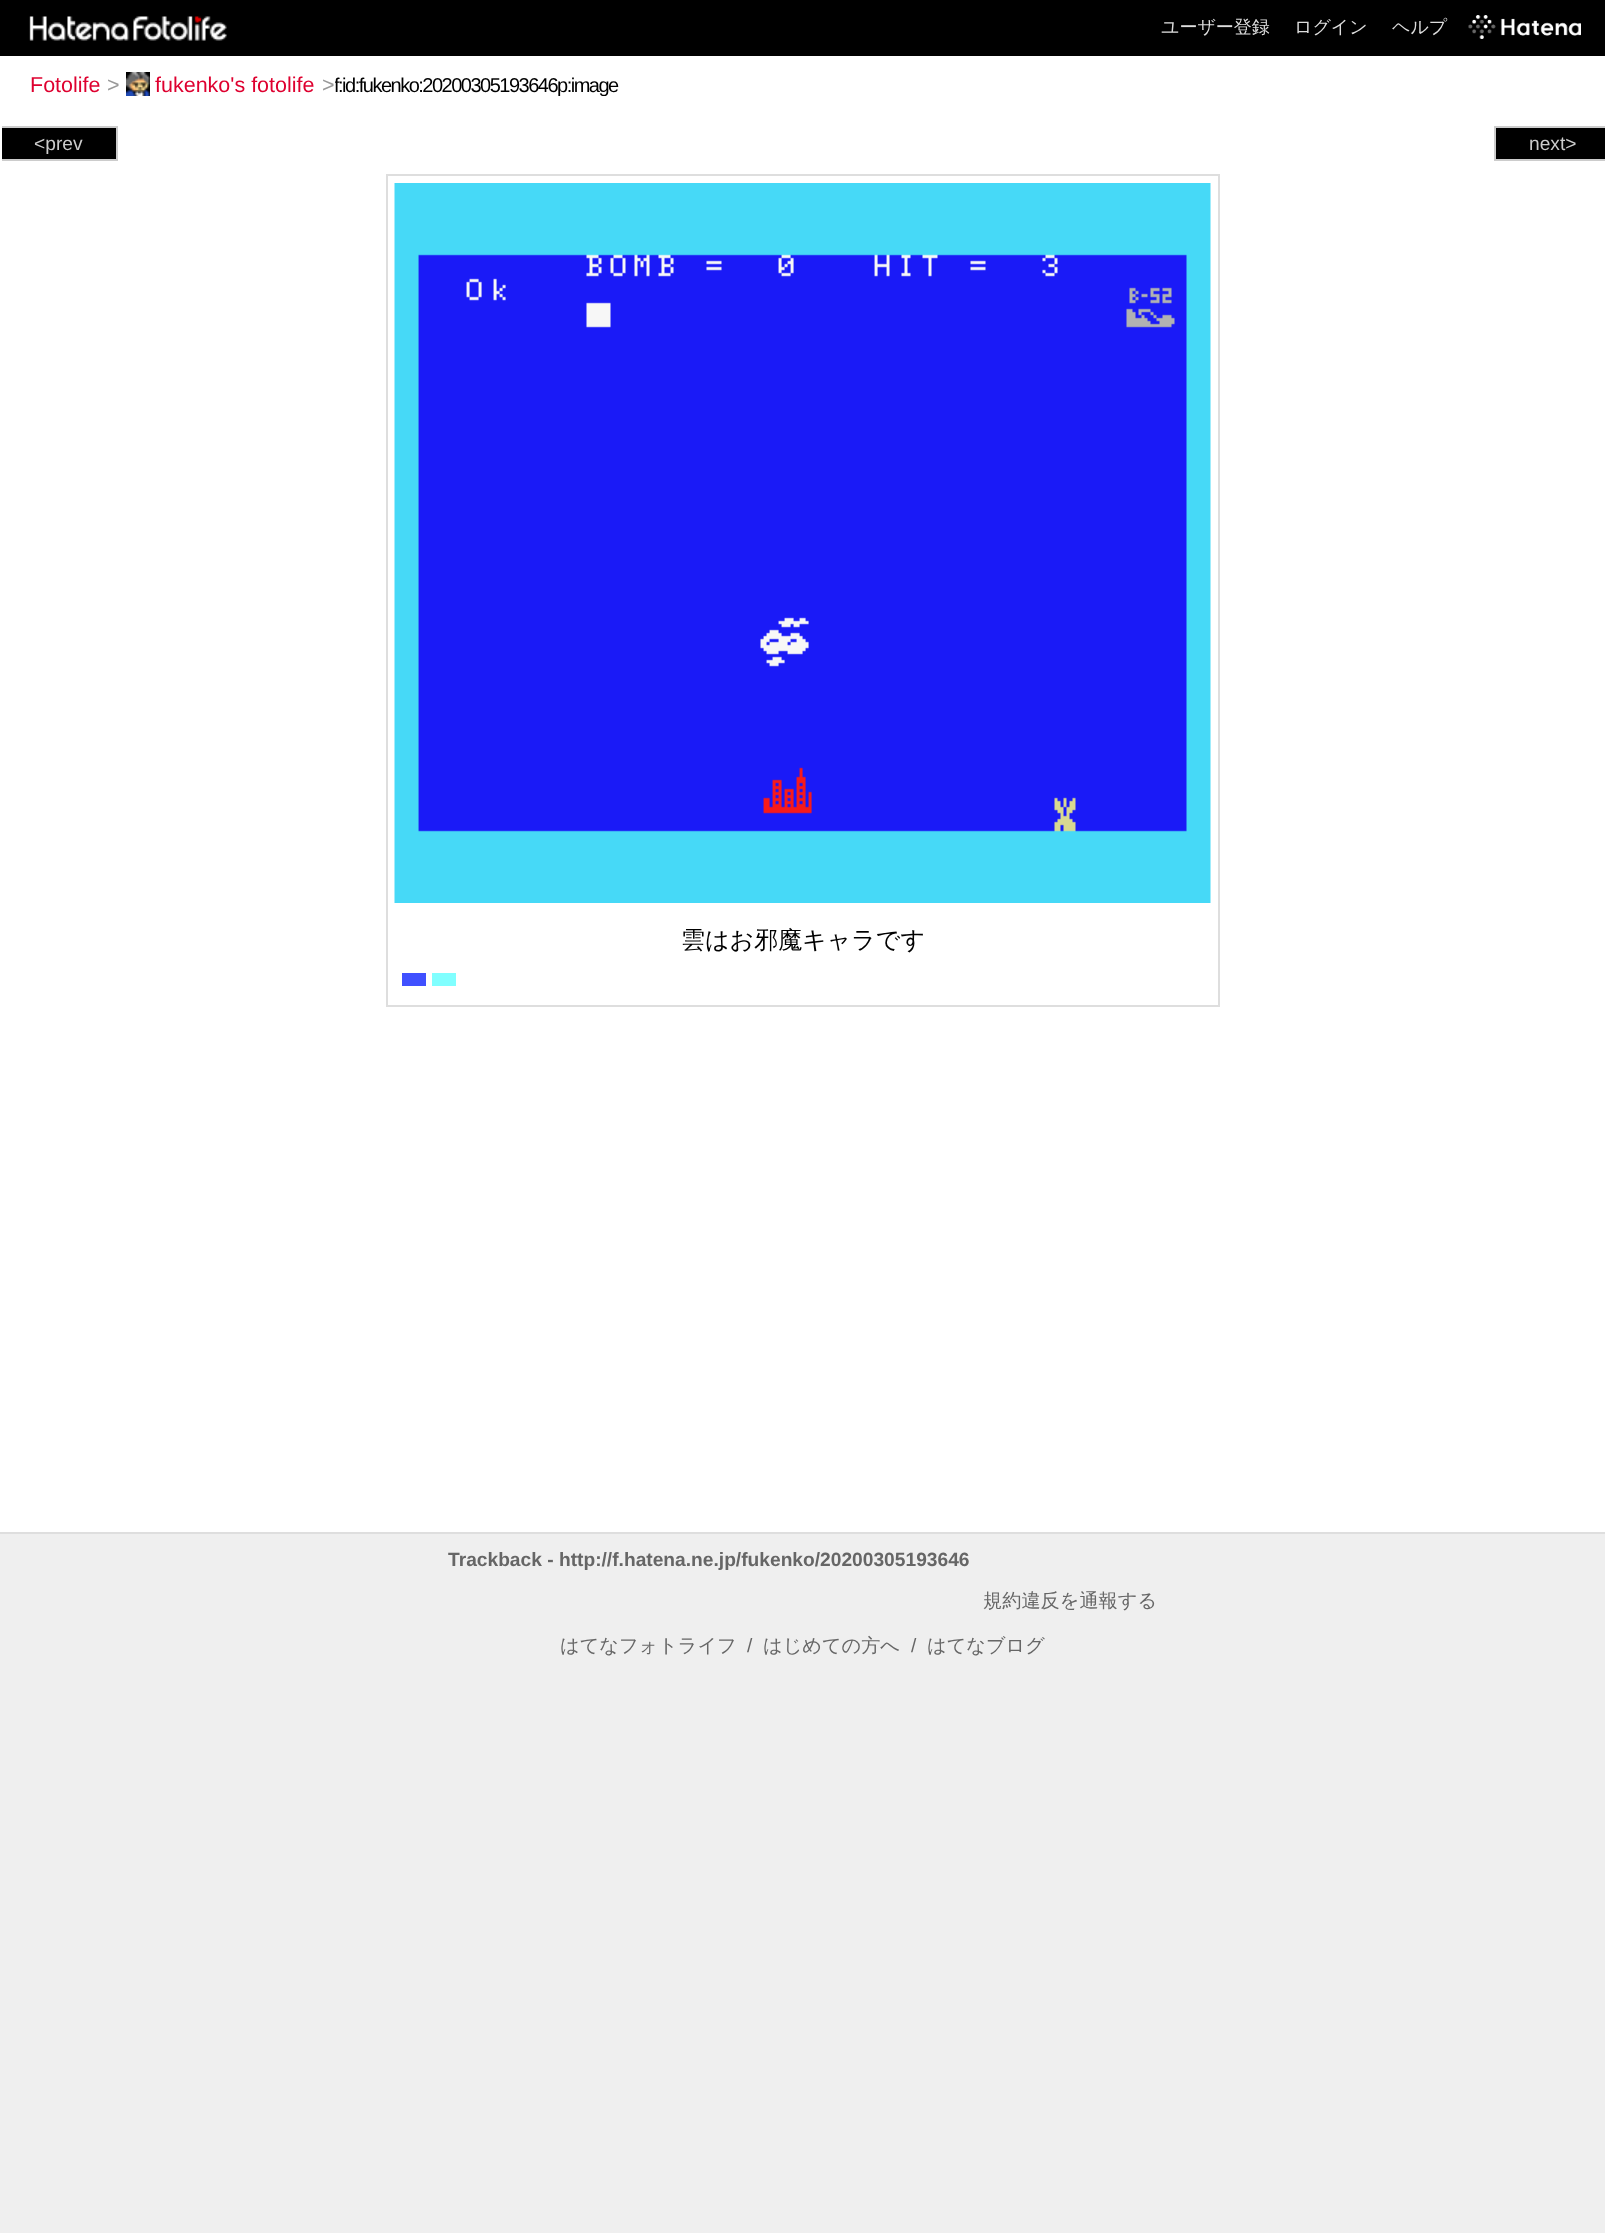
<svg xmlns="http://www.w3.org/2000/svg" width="1605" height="2233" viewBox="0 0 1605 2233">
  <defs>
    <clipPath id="clip1"><path d="M335 74h565v22H335z"/></clipPath>
  </defs>
  <rect width="100%" height="100%" fill="#efefef"/>
  <path d="M0 0h1605v56H0z" fill="#000"/>
  <image x="29" y="16" width="101" height="25" href="img/1.png"/>
  <image x="133" y="16" width="94" height="25" href="img/2.png"/>
  <image x="1468" y="15" width="113" height="24" href="img/3.png"/>
  <path d="M0 56h1605v1476H0z" fill="#fff"/>
  <image x="126" y="72" width="24" height="24" href="img/4.png"/>
  <path d="M0 1532h1605v2H0z" fill="#dedede"/>
  <path d="M2 128h114v31H2z" fill="#000"/>
  <path d="M2 126h115v2H2z" fill="#ccc"/>
  <path d="M116 126h2v35H116z" fill="#ccc"/>
  <path d="M2 159h115v2H2z" fill="#ccc"/>
  <path d="M1496 128h109v31H1496z" fill="#000"/>
  <path d="M1494 126h111v2H1494z" fill="#ccc"/>
  <path d="M1494 159h111v2H1494z" fill="#ccc"/>
  <path d="M1494 126h2v35H1494z" fill="#ccc"/>
  <path d="M387 175h832v831H387z" fill="none" stroke="#dedede" stroke-width="2"/>
  <image x="394" y="183" width="817" height="720" href="img/5.png"/>
  <path d="M402 973h24v13H402z" fill="#4050ff"/>
  <path d="M432 973h24v13H432z" fill="#80ffff"/>
  <g font-family="WenQuanYi Zen Hei" font-size="18" font-weight="500" fill="#ddd">
    <text x="1161" y="33">ユーザー登録</text>
    <text x="1294" y="33">ログイン</text>
    <text x="1392" y="33">ヘルプ</text>
  </g>
  <text x="30" y="92" font-family="Liberation Sans" font-size="21.5" fill="#de002f">Fotolife</text>
  <text x="107" y="92" font-family="Liberation Sans" font-size="21.5" fill="#999">&gt;</text>
  <text x="155" y="92" font-family="Liberation Sans" font-size="21.5" fill="#de002f">fukenko's fotolife</text>
  <text x="322" y="92" font-family="Liberation Sans" font-size="21.5" fill="#999">&gt;</text>
  <g clip-path="url(#clip1)">
    <text x="334" y="92" font-family="Liberation Sans" font-size="20" letter-spacing="-1.5" fill="#000">f:id:fukenko:20200305193646p:image</text>
  </g>
  <g font-family="Liberation Sans" font-size="19.2" fill="#ccc">
    <text x="34" y="150">&lt;prev</text>
    <text x="1529" y="150">next&gt;</text>
  </g>
  <text x="681" y="948" font-family="WenQuanYi Zen Hei" font-size="24" font-weight="500" fill="#000">雲はお邪魔キャラです</text>
  <text x="448" y="1566" font-family="Liberation Sans" font-size="19.2" font-weight="bold" fill="#666">Trackback - http://f.hatena.ne.jp/fukenko/20200305193646</text>
  <g font-family="WenQuanYi Zen Hei" font-size="19.2" font-weight="500" fill="#666">
    <text x="983" y="1607">規約違反を通報する</text>
    <text x="560" y="1652">はてなフォトライフ</text>
  </g>
  <text x="747" y="1652" font-family="Liberation Sans" font-size="19.2" fill="#666">/</text>
  <text x="763" y="1652" font-family="WenQuanYi Zen Hei" font-size="19.2" font-weight="500" fill="#666">はじめての方へ</text>
  <text x="911" y="1652" font-family="Liberation Sans" font-size="19.2" fill="#666">/</text>
  <text x="927" y="1652" font-family="WenQuanYi Zen Hei" font-size="19.2" font-weight="500" fill="#666">はてなブログ</text>
</svg>
